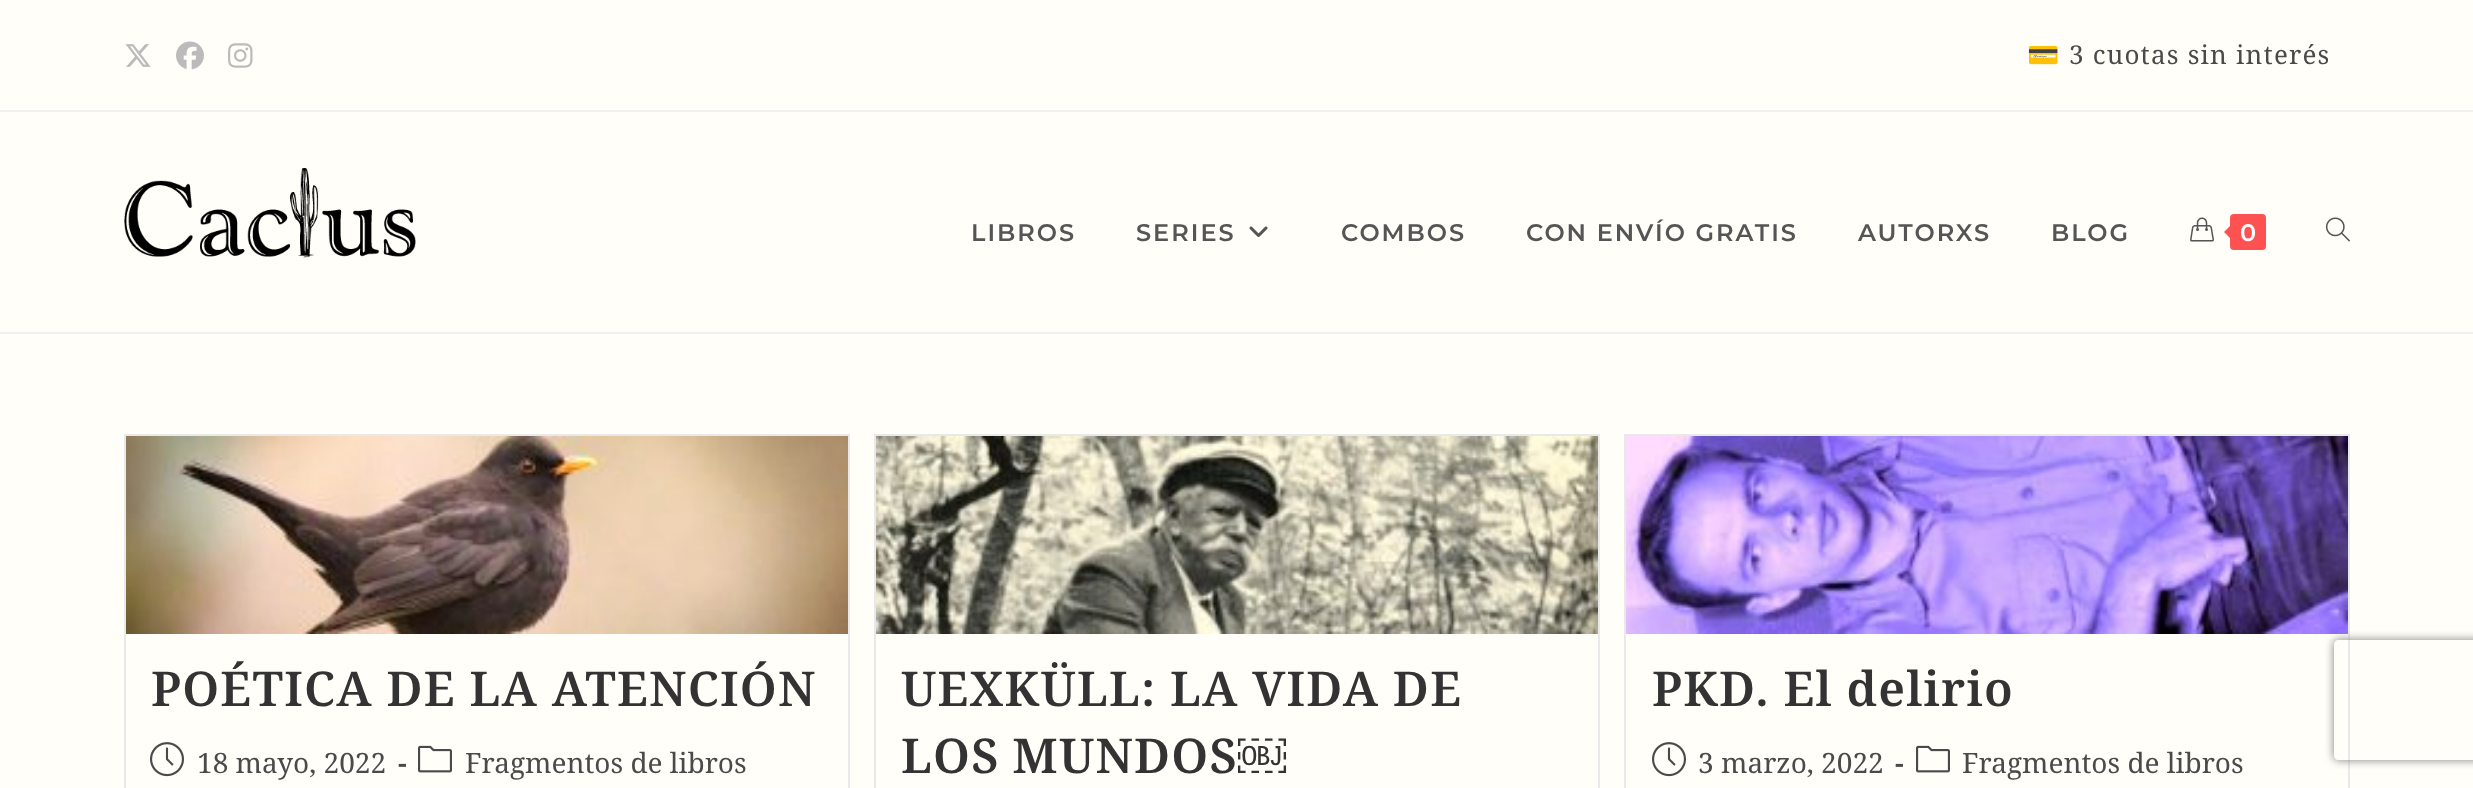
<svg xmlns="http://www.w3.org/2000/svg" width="2473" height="788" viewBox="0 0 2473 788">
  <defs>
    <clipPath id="clip1"><path d="M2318 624H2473V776H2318ZM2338 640H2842C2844 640 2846 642 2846 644V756C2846 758 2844 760 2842 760H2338C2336 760 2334 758 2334 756V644C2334 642 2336 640 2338 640Z" clip-rule="evenodd"/></clipPath>
  </defs>
  <rect width="100%" height="100%" fill="#fffef9"/>
  <path d="M0 110h2473v2H0z" fill="#f1f1f1"/>
  <image x="125" y="44" width="26" height="23" href="img/1.png"/>
  <image x="176" y="41" width="28" height="29" href="img/2.png"/>
  <image x="228" y="43" width="25" height="25" href="img/3.png"/>
  <path d="M0 332h2473v2H0z" fill="#f1f1f1"/>
  <image x="124" y="168" width="292" height="90" href="img/4.png"/>
  <image x="1249" y="226" width="19" height="11" href="img/5.png"/>
  <image x="2190" y="217" width="24" height="25" href="img/6.png"/>
  <rect x="2230" y="214" width="36" height="36" rx="4" fill="#fe5252"/>
  <path d="M2234 222V242L2224 232Z" fill="#fe5252"/>
  <image x="2325" y="217" width="25" height="25" href="img/7.png"/>
  <path d="M125 435h724v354H125z" fill="none" stroke="#e9e9e9" stroke-width="2"/>
  <image x="126" y="436" width="722" height="198" href="img/8.png"/>
  <image x="150" y="742" width="34" height="35" href="img/9.png"/>
  <image x="418" y="745" width="34" height="28" href="img/10.png"/>
  <path d="M875 435h724v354H875z" fill="none" stroke="#e9e9e9" stroke-width="2"/>
  <image x="876" y="436" width="722" height="198" href="img/11.png"/>
  <path d="M1625 435h724v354H1625z" fill="none" stroke="#e9e9e9" stroke-width="2"/>
  <image x="1626" y="436" width="722" height="198" href="img/12.png"/>
  <image x="1652" y="742" width="34" height="35" href="img/9.png"/>
  <image x="1916" y="745" width="34" height="28" href="img/10.png"/>
  <g clip-path="url(#clip1)">
    <rect x="2334" y="640" width="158" height="120" rx="4" fill="#808080" filter="blur(5px)"/>
  </g>
  <text x="2027" y="64" font-family="Noto Color Emoji" font-size="26" letter-spacing="1.2" fill="#4a4a4a">💳</text>
  <text x="2069" y="64" font-family="Noto Serif" font-size="26" letter-spacing="1.2" fill="#4a4a4a">3 cuotas sin interés</text>
  <g font-family="Montserrat" font-size="24" font-weight="600" letter-spacing="2" fill="#555">
    <text x="971" y="241">LIBROS</text>
    <text x="1136" y="241">SERIES</text>
    <text x="1341" y="241">COMBOS</text>
    <text x="1526" y="241">CON ENVÍO GRATIS</text>
    <text x="1858" y="241">AUTORXS</text>
    <text x="2051" y="241">BLOG</text>
  </g>
  <text x="2240" y="241" font-family="Montserrat" font-size="24" font-weight="600" fill="#fff">0</text>
  <text x="151" y="706" font-family="Noto Serif" font-size="48" font-weight="600" letter-spacing="1.2" fill="#333">POÉTICA DE LA ATENCIÓN</text>
  <text x="197" y="773" font-family="Noto Serif" font-size="28" fill="#4a4a4a">18 mayo, 2022</text>
  <text x="398" y="773" font-family="Noto Serif" font-size="28" font-weight="bold" fill="#4a4a4a">-</text>
  <text x="465" y="773" font-family="Noto Serif" font-size="28" fill="#4a4a4a">Fragmentos de libros</text>
  <g font-family="Noto Serif" font-size="48" font-weight="600" letter-spacing="1.2" fill="#333">
    <text x="901" y="706">UEXKÜLL: LA VIDA DE</text>
    <text x="901" y="773" word-spacing="-1">LOS MUNDOS</text>
  </g>
  <text x="1238" y="773" font-family="Liberation Serif" font-size="48" font-weight="bold" letter-spacing="1.2" fill="#333">￼</text>
  <text x="1652" y="706" font-family="Noto Serif" font-size="48" font-weight="600" letter-spacing="1.2" fill="#333">PKD. El delirio</text>
  <text x="1698" y="773" font-family="Noto Serif" font-size="28" fill="#4a4a4a">3 marzo, 2022</text>
  <text x="1895" y="773" font-family="Noto Serif" font-size="28" font-weight="bold" fill="#4a4a4a">-</text>
  <text x="1962" y="773" font-family="Noto Serif" font-size="28" fill="#4a4a4a">Fragmentos de libros</text>
</svg>
